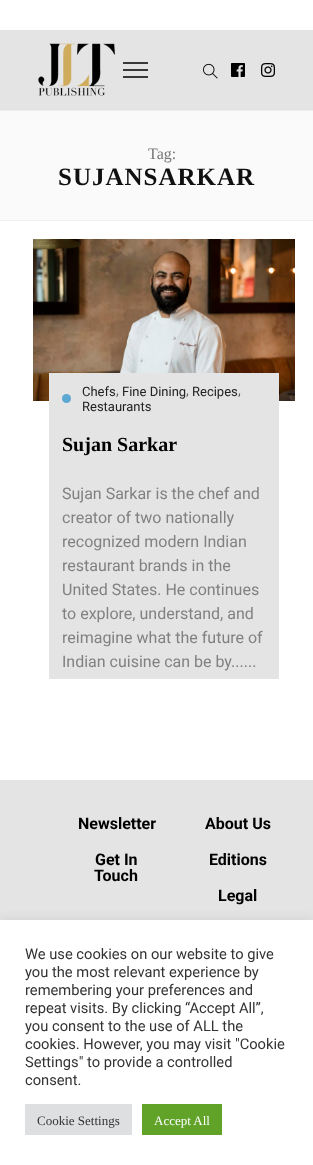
<svg xmlns="http://www.w3.org/2000/svg" width="313" height="1165" viewBox="0 0 313 1165">
  <rect width="100%" height="100%" fill="#fff"/>
  <path d="M0 30h313v80H0z" fill="#e4e4e4"/>
  <image x="38" y="43" width="78" height="53" href="img/1.png"/>
  <path d="M123 69h25v2H123z" fill="#383838"/>
  <path d="M123 62h25v2H123z" fill="#383838"/>
  <path d="M123 76h25v2H123z" fill="#383838"/>
  <image x="203" y="63" width="15" height="16" href="img/2.png"/>
  <image x="231" y="63" width="14" height="14" href="img/3.png"/>
  <image x="261" y="63" width="14" height="14" href="img/4.png"/>
  <path d="M0 111h313v109H0z" fill="#fafafa"/>
  <path d="M0 110h313v1H0z" fill="#eee"/>
  <path d="M0 220h313v1H0z" fill="#f1f1f1"/>
  <image x="33" y="239" width="262" height="162" href="img/5.png"/>
  <path d="M49 373h230v306H49z" fill="#e4e4e4"/>
  <circle cx="66.5" cy="398.5" r="4.5" fill="#5ca8d3"/>
  <path d="M0 780h313v140H0z" fill="#e4e4e4"/>
  <path d="M0 919h313v245H0z" fill="#acabab4d" filter="blur(5px)"/>
  <path d="M0 920h313v245H0z" fill="#fff"/>
  <path d="M25 1104h107v31H25z" fill="#dedfe0"/>
  <path d="M142 1104h80v31H142z" fill="#61a229"/>
  <text x="148" y="159" font-family="Liberation Serif" font-size="16" fill="#777">Tag:</text>
  <text x="58" y="185" font-family="Liberation Serif" font-size="25" font-weight="bold" letter-spacing="1" fill="#101010">SUJANSARKAR</text>
  <text x="82" y="396" font-family="Roboto" font-size="13" fill="#222">Chefs</text>
  <text x="116" y="395" font-family="Roboto" font-size="14" fill="#626262">,</text>
  <text x="122" y="396" font-family="Roboto" font-size="13" fill="#222">Fine Dining</text>
  <text x="186" y="395" font-family="Roboto" font-size="14" fill="#626262">,</text>
  <text x="192" y="396" font-family="Roboto" font-size="13" fill="#222">Recipes</text>
  <text x="238" y="395" font-family="Roboto" font-size="14" fill="#626262">,</text>
  <text x="82" y="411" font-family="Roboto" font-size="13" fill="#222">Restaurants</text>
  <text x="62" y="451" font-family="Liberation Serif" font-size="20" font-weight="bold" fill="#000">Sujan Sarkar</text>
  <g font-family="Roboto" font-size="16" fill="#818181">
    <text x="62" y="499">Sujan Sarkar is the chef and</text>
    <text x="62" y="523">creator of two nationally</text>
    <text x="62" y="547">recognized modern Indian</text>
    <text x="62" y="571">restaurant brands in the</text>
    <text x="62" y="595">United States. He continues</text>
    <text x="62" y="619">to explore, understand, and</text>
    <text x="62" y="643">reimagine what the future of</text>
    <text x="62" y="667">Indian cuisine can be by......</text>
  </g>
  <g font-family="Roboto" font-size="16" font-weight="bold" fill="#000">
    <text x="78" y="829">Newsletter</text>
    <text x="205" y="829">About Us</text>
    <text x="95" y="865">Get In</text>
    <text x="94" y="881">Touch</text>
    <text x="209" y="865">Editions</text>
    <text x="218" y="901">Legal</text>
  </g>
  <g font-family="Roboto" font-size="14.7" fill="#333">
    <text x="25" y="959">We use cookies on our website to give</text>
    <text x="25" y="977">you the most relevant experience by</text>
    <text x="25" y="995">remembering your preferences and</text>
    <text x="25" y="1013">repeat visits. By clicking “Accept All”,</text>
    <text x="25" y="1031">you consent to the use of ALL the</text>
    <text x="25" y="1049">cookies. However, you may visit "Cookie</text>
    <text x="25" y="1067">Settings" to provide a controlled</text>
    <text x="25" y="1085">consent.</text>
  </g>
  <text x="37" y="1125" font-family="Liberation Serif" font-size="13" fill="#333">Cookie Settings</text>
  <text x="154" y="1125" font-family="Liberation Serif" font-size="13" fill="#fff">Accept All</text>
</svg>
